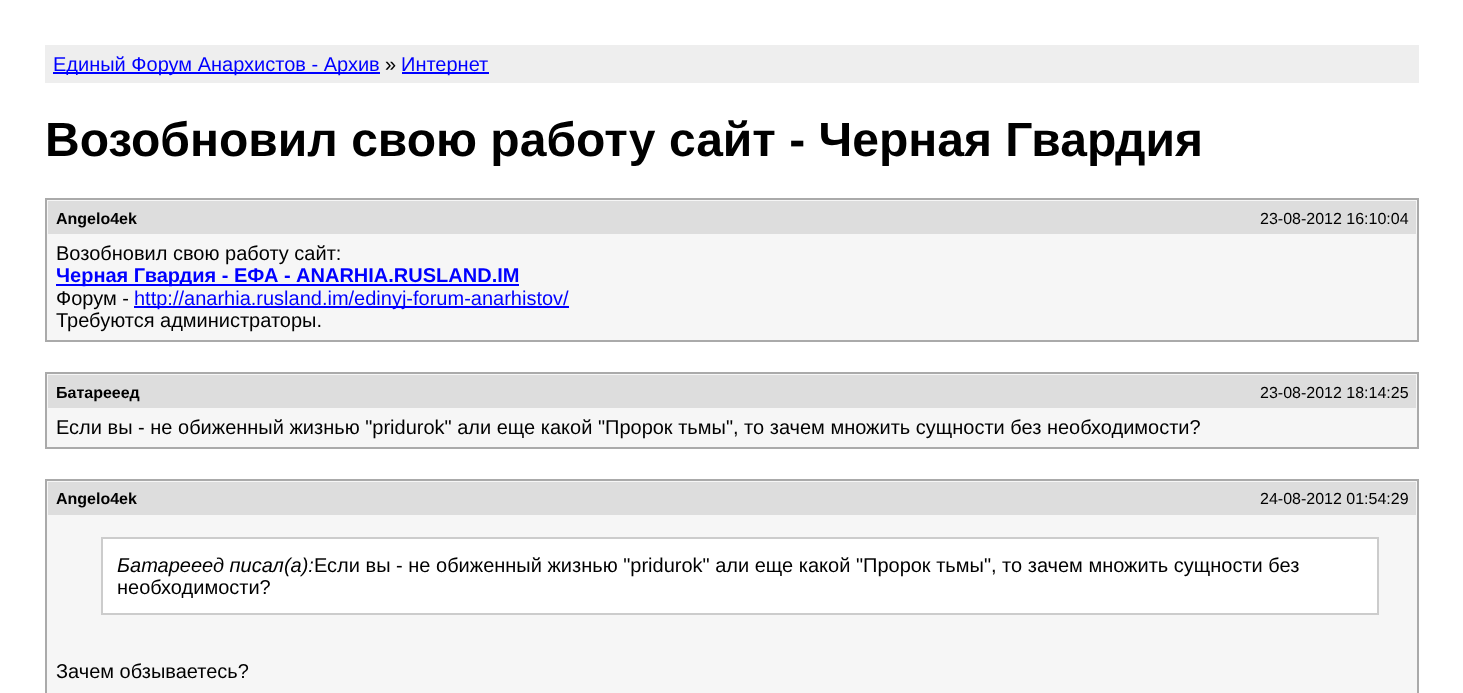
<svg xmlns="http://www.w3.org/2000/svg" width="1463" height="693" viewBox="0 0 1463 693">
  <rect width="100%" height="100%" fill="#fff"/>
  <path d="M45 45h1374v38H45z" fill="#eee"/>
  <path d="M53 72h327v2H53z" fill="#00f"/>
  <path d="M402 72h87v2H402z" fill="#00f"/>
  <path d="M46 199h1372v142H46z" fill="#f6f6f6" stroke="#aaa" stroke-width="2"/>
  <path d="M48 201h1368v33H48z" fill="#ddd"/>
  <path d="M56 284h463v2H56z" fill="#00f"/>
  <path d="M134 306h435v2H134z" fill="#00f"/>
  <path d="M46 373h1372v75H46z" fill="#f6f6f6" stroke="#aaa" stroke-width="2"/>
  <path d="M48 375h1368v33H48z" fill="#ddd"/>
  <path d="M46 480h1372v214H46z" fill="#f6f6f6" stroke="#aaa" stroke-width="2"/>
  <path d="M48 482h1368v33H48z" fill="#ddd"/>
  <path d="M102 538h1276v76H102z" fill="#fff" stroke="#ccc" stroke-width="2"/>
  <text x="53" y="71" font-family="Liberation Sans" font-size="20" fill="#00f">Единый Форум Анархистов - Архив</text>
  <text x="385" y="71" font-family="Liberation Sans" font-size="20" fill="#000">»</text>
  <text x="401" y="71" font-family="Liberation Sans" font-size="20" fill="#00f">Интернет</text>
  <text x="45" y="156" font-family="Liberation Sans" font-size="48" font-weight="bold" fill="#000">Возобновил свою работу сайт - Черная Гвардия</text>
  <text x="56" y="224" font-family="Liberation Sans" font-size="16" font-weight="bold" fill="#000">Angelo4ek</text>
  <text x="1260" y="224" font-family="Liberation Sans" font-size="16" fill="#000">23-08-2012 16:10:04</text>
  <text x="56" y="260" font-family="Liberation Sans" font-size="20" fill="#000">Возобновил свою работу сайт:</text>
  <text x="56" y="282" font-family="Liberation Sans" font-size="20" font-weight="bold" fill="#00f">Черная Гвардия - ЕФА - ANARHIA.RUSLAND.IM</text>
  <text x="56" y="305" font-family="Liberation Sans" font-size="20" fill="#000">Форум -</text>
  <text x="134" y="305" font-family="Liberation Sans" font-size="20" fill="#00f">http://anarhia.rusland.im/edinyj-forum-anarhistov/</text>
  <text x="56" y="327" font-family="Liberation Sans" font-size="20" fill="#000">Требуются администраторы.</text>
  <text x="56" y="398" font-family="Liberation Sans" font-size="16" font-weight="bold" fill="#000">Батарееед</text>
  <text x="1260" y="398" font-family="Liberation Sans" font-size="16" fill="#000">23-08-2012 18:14:25</text>
  <text x="56" y="434" font-family="Liberation Sans" font-size="20" fill="#000">Если вы - не обиженный жизнью "pridurok" али еще какой "Пророк тьмы", то зачем множить сущности без необходимости?</text>
  <text x="56" y="504" font-family="Liberation Sans" font-size="16" font-weight="bold" fill="#000">Angelo4ek</text>
  <text x="1260" y="504" font-family="Liberation Sans" font-size="16" fill="#000">24-08-2012 01:54:29</text>
  <text x="117" y="572" font-family="Liberation Sans" font-size="20" font-style="italic" fill="#000">Батарееед писал(а):</text>
  <g font-family="Liberation Sans" font-size="20" fill="#000">
    <text x="314" y="572">Если вы - не обиженный жизнью "pridurok" али еще какой "Пророк тьмы", то зачем множить сущности без</text>
    <text x="117" y="594">необходимости?</text>
    <text x="56" y="678">Зачем обзываетесь?</text>
  </g>
</svg>
